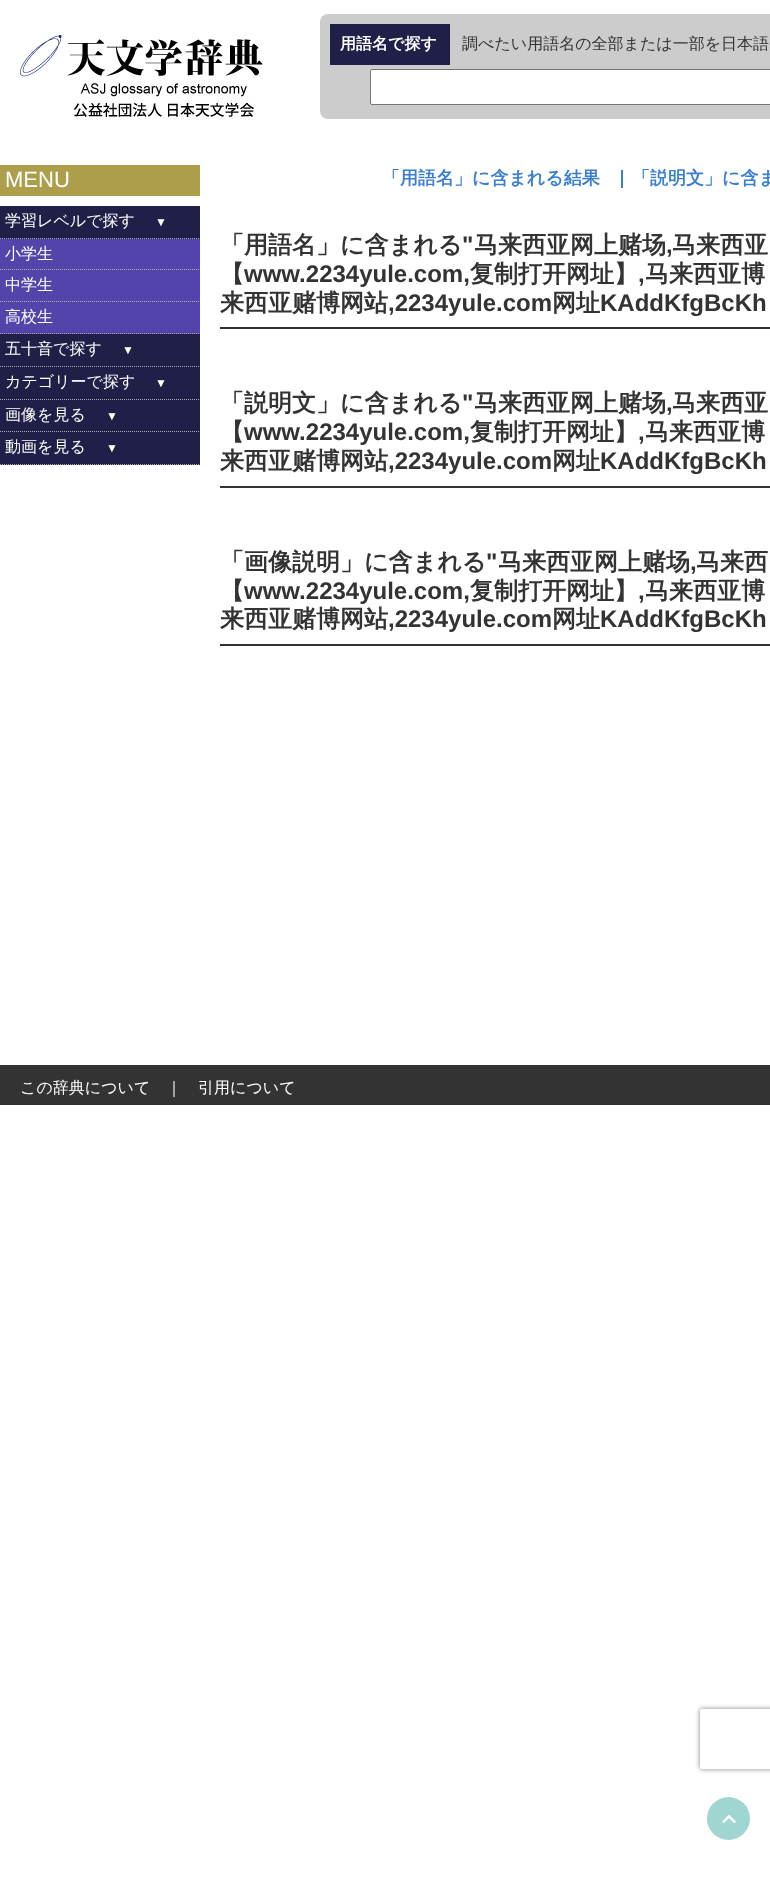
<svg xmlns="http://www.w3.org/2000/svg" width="770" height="1879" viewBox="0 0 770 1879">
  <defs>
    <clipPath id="clip1"><path d="M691 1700H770V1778H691ZM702 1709H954C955 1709 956 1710 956 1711V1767C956 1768 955 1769 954 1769H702C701 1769 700 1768 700 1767V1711C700 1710 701 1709 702 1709Z" clip-rule="evenodd"/></clipPath>
  </defs>
  <rect width="100%" height="100%" fill="#fff"/>
  <image x="20" y="35" width="243" height="82" href="img/1.png"/>
  <rect x="320" y="14" width="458" height="105" rx="8" fill="#ccc"/>
  <path d="M330 24h120v41H330z" fill="#1f1f47"/>
  <rect x="370.5" y="69.5" width="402" height="35" rx="1.5" fill="#fff" stroke="#767676"/>
  <path d="M0 165h200v31H0z" fill="#ad9e4c"/>
  <path d="M0 206h200v33H0z" fill="#1f1f47"/>
  <path d="M0 238.5H200" fill="none" stroke="#a9a9a9" stroke-dasharray="1 1"/>
  <path d="M0 239h200v95H0z" fill="#5244ab"/>
  <path d="M0 269.5H200" fill="none" stroke="#a9a9a9" stroke-dasharray="1 1"/>
  <path d="M0 301.5H200" fill="none" stroke="#a9a9a9" stroke-dasharray="1 1"/>
  <path d="M0 333.5H200" fill="none" stroke="#a9a9a9" stroke-dasharray="1 1"/>
  <path d="M0 334h200v131H0z" fill="#1f1f47"/>
  <path d="M0 366.5H200" fill="none" stroke="#a9a9a9" stroke-dasharray="1 1"/>
  <path d="M0 399.5H200" fill="none" stroke="#a9a9a9" stroke-dasharray="1 1"/>
  <path d="M0 431.5H200" fill="none" stroke="#a9a9a9" stroke-dasharray="1 1"/>
  <path d="M0 464.5H200" fill="none" stroke="#a9a9a9" stroke-dasharray="1 1"/>
  <path d="M621 170h2v18H621z" fill="#3a7fcf"/>
  <path d="M220 327h550v2H220z" fill="#333"/>
  <path d="M220 486h550v2H220z" fill="#333"/>
  <path d="M220 644h550v2H220z" fill="#333"/>
  <path d="M0 1065h770v40H0z" fill="#333"/>
  <circle cx="728.5" cy="1818.5" r="21.5" fill="#9fd6d2"/>
  <image x="722" y="1815" width="14" height="9" href="img/2.png"/>
  <g clip-path="url(#clip1)">
    <rect x="700" y="1709" width="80" height="60" rx="2" fill="#808080" filter="blur(2.5px)"/>
  </g>
  <text x="340" y="49" font-family="WenQuanYi Zen Hei" font-size="16" font-weight="bold" fill="#fff">用語名で探す</text>
  <text x="462" y="49" font-family="WenQuanYi Zen Hei" font-size="16" font-weight="500" fill="#333">調べたい用語名の全部または一部を日本語</text>
  <text x="5" y="187" font-family="Liberation Sans" font-size="22" fill="#fff">MENU</text>
  <text x="5" y="226" font-family="WenQuanYi Zen Hei" font-size="16" font-weight="500" fill="#fff">学習レベルで探す</text>
  <text x="155" y="226" font-family="Liberation Sans" font-size="12" fill="#fff">▼</text>
  <g font-family="WenQuanYi Zen Hei" font-size="16" font-weight="500" fill="#fff">
    <text x="5" y="259">小学生</text>
    <text x="5" y="290">中学生</text>
    <text x="5" y="322">高校生</text>
    <text x="5" y="354">五十音で探す</text>
  </g>
  <text x="122" y="354" font-family="Liberation Sans" font-size="12" fill="#fff">▼</text>
  <text x="5" y="387" font-family="WenQuanYi Zen Hei" font-size="16" font-weight="500" fill="#fff">カテゴリーで探す</text>
  <text x="155" y="387" font-family="Liberation Sans" font-size="12" fill="#fff">▼</text>
  <text x="5" y="420" font-family="WenQuanYi Zen Hei" font-size="16" font-weight="500" fill="#fff">画像を見る</text>
  <text x="106" y="420" font-family="Liberation Sans" font-size="12" fill="#fff">▼</text>
  <text x="5" y="452" font-family="WenQuanYi Zen Hei" font-size="16" font-weight="500" fill="#fff">動画を見る</text>
  <text x="106" y="452" font-family="Liberation Sans" font-size="12" fill="#fff">▼</text>
  <g font-family="WenQuanYi Zen Hei" font-size="18" font-weight="bold" fill="#3a7fcf">
    <text x="382" y="184">「用語名」に含まれる結果</text>
    <text x="632" y="184">「説明文」に含ま</text>
  </g>
  <text x="220" y="253" font-family="WenQuanYi Zen Hei" font-size="24" font-weight="bold" fill="#333">「用語名」に含まれる</text>
  <text x="462" y="253" font-family="Liberation Sans" font-size="24" font-weight="bold" fill="#333">"</text>
  <g font-family="WenQuanYi Zen Hei" font-size="24" font-weight="bold" fill="#333">
    <text x="474" y="253">马来西亚网上赌场</text>
    <text x="672" y="253">马来西亚</text>
  </g>
  <text x="666" y="253" font-family="Liberation Sans" font-size="24" font-weight="bold" fill="#333">,</text>
  <text x="220" y="282" font-family="WenQuanYi Zen Hei" font-size="24" font-weight="bold" fill="#333">【</text>
  <text x="244" y="282" font-family="Liberation Sans" font-size="24" font-weight="bold" fill="#333">www.2234yule.com,</text>
  <text x="470" y="282" font-family="WenQuanYi Zen Hei" font-size="24" font-weight="bold" fill="#333">复制打开网址】</text>
  <text x="638" y="282" font-family="Liberation Sans" font-size="24" font-weight="bold" fill="#333">,</text>
  <g font-family="WenQuanYi Zen Hei" font-size="24" font-weight="bold" fill="#333">
    <text x="645" y="282">马来西亚博</text>
    <text x="220" y="311">来西亚赌博网站</text>
  </g>
  <text x="388" y="311" font-family="Liberation Sans" font-size="24" font-weight="bold" fill="#333">,2234yule.com</text>
  <text x="552" y="311" font-family="WenQuanYi Zen Hei" font-size="24" font-weight="bold" fill="#333">网址</text>
  <text x="600" y="311" font-family="Liberation Sans" font-size="24" font-weight="bold" fill="#333">KAddKfgBcKh</text>
  <text x="220" y="411" font-family="WenQuanYi Zen Hei" font-size="24" font-weight="bold" fill="#333">「説明文」に含まれる</text>
  <text x="462" y="411" font-family="Liberation Sans" font-size="24" font-weight="bold" fill="#333">"</text>
  <g font-family="WenQuanYi Zen Hei" font-size="24" font-weight="bold" fill="#333">
    <text x="474" y="411">马来西亚网上赌场</text>
    <text x="672" y="411">马来西亚</text>
  </g>
  <text x="666" y="411" font-family="Liberation Sans" font-size="24" font-weight="bold" fill="#333">,</text>
  <text x="220" y="440" font-family="WenQuanYi Zen Hei" font-size="24" font-weight="bold" fill="#333">【</text>
  <text x="244" y="440" font-family="Liberation Sans" font-size="24" font-weight="bold" fill="#333">www.2234yule.com,</text>
  <text x="470" y="440" font-family="WenQuanYi Zen Hei" font-size="24" font-weight="bold" fill="#333">复制打开网址】</text>
  <text x="638" y="440" font-family="Liberation Sans" font-size="24" font-weight="bold" fill="#333">,</text>
  <g font-family="WenQuanYi Zen Hei" font-size="24" font-weight="bold" fill="#333">
    <text x="645" y="440">马来西亚博</text>
    <text x="220" y="469">来西亚赌博网站</text>
  </g>
  <text x="388" y="469" font-family="Liberation Sans" font-size="24" font-weight="bold" fill="#333">,2234yule.com</text>
  <text x="552" y="469" font-family="WenQuanYi Zen Hei" font-size="24" font-weight="bold" fill="#333">网址</text>
  <text x="600" y="469" font-family="Liberation Sans" font-size="24" font-weight="bold" fill="#333">KAddKfgBcKh</text>
  <text x="220" y="570" font-family="WenQuanYi Zen Hei" font-size="24" font-weight="bold" fill="#333">「画像説明」に含まれる</text>
  <text x="486" y="570" font-family="Liberation Sans" font-size="24" font-weight="bold" fill="#333">"</text>
  <g font-family="WenQuanYi Zen Hei" font-size="24" font-weight="bold" fill="#333">
    <text x="498" y="570">马来西亚网上赌场</text>
    <text x="696" y="570">马来西</text>
  </g>
  <text x="690" y="570" font-family="Liberation Sans" font-size="24" font-weight="bold" fill="#333">,</text>
  <text x="220" y="599" font-family="WenQuanYi Zen Hei" font-size="24" font-weight="bold" fill="#333">【</text>
  <text x="244" y="599" font-family="Liberation Sans" font-size="24" font-weight="bold" fill="#333">www.2234yule.com,</text>
  <text x="470" y="599" font-family="WenQuanYi Zen Hei" font-size="24" font-weight="bold" fill="#333">复制打开网址】</text>
  <text x="638" y="599" font-family="Liberation Sans" font-size="24" font-weight="bold" fill="#333">,</text>
  <g font-family="WenQuanYi Zen Hei" font-size="24" font-weight="bold" fill="#333">
    <text x="645" y="599">马来西亚博</text>
    <text x="220" y="627">来西亚赌博网站</text>
  </g>
  <text x="388" y="627" font-family="Liberation Sans" font-size="24" font-weight="bold" fill="#333">,2234yule.com</text>
  <text x="552" y="627" font-family="WenQuanYi Zen Hei" font-size="24" font-weight="bold" fill="#333">网址</text>
  <text x="600" y="627" font-family="Liberation Sans" font-size="24" font-weight="bold" fill="#333">KAddKfgBcKh</text>
  <g font-family="WenQuanYi Zen Hei" font-size="16" font-weight="500" fill="#fff">
    <text x="20" y="1093">この辞典について</text>
    <text x="166" y="1093">｜</text>
    <text x="198" y="1093">引用について</text>
  </g>
</svg>
